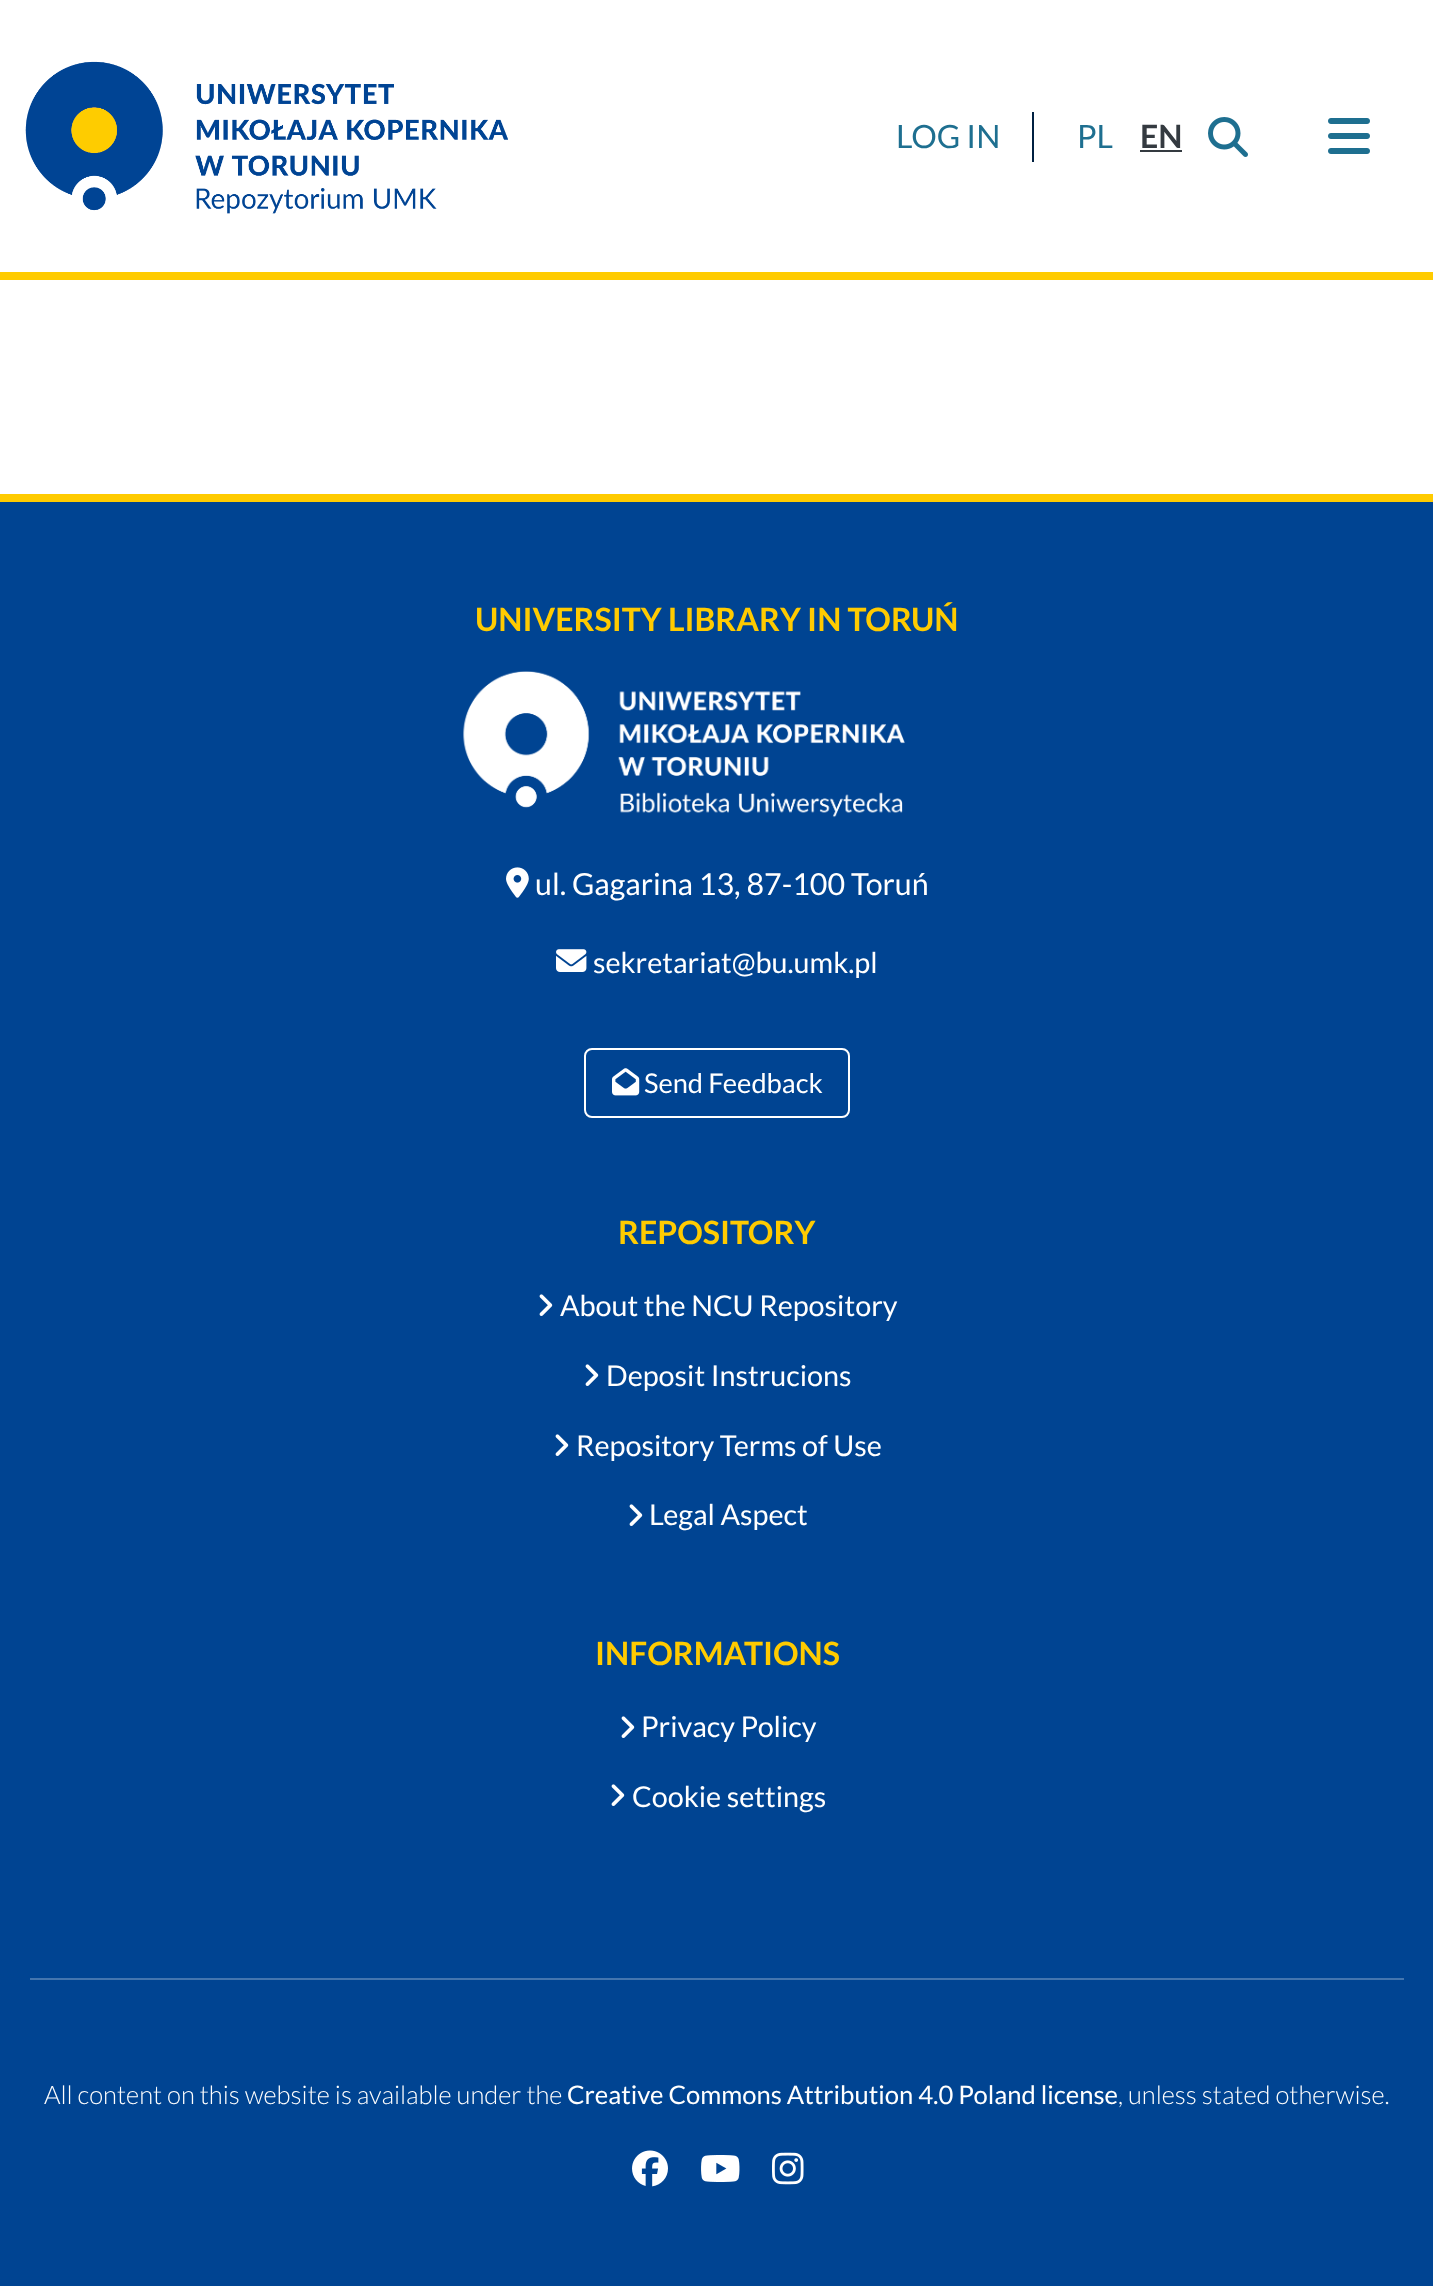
<svg xmlns="http://www.w3.org/2000/svg" width="1433" height="2286" viewBox="0 0 1433 2286">
  <rect width="100%" height="100%" fill="#fff"/>
  <path d="M0 272h1433v8H0z" fill="#ffcb00"/>
  <image x="25" y="61" width="483" height="153" href="img/1.png"/>
  <path d="M1032 112h2v50H1032z" fill="#002041"/>
  <path d="M1140 150h42v2H1140z" fill="#343a40"/>
  <image x="1208" y="117" width="40" height="40" href="img/2.png"/>
  <image x="1328" y="118" width="42" height="36" href="img/3.png"/>
  <path d="M0 502h1433v1784H0z" fill="#004492"/>
  <path d="M0 494h1433v8H0z" fill="#ffcb00"/>
  <image x="463" y="671" width="442" height="147" href="img/4.png"/>
  <image x="506" y="867" width="23" height="31" href="img/5.png"/>
  <image x="556" y="949" width="31" height="23" href="img/6.png"/>
  <rect x="585" y="1049" width="264" height="68" rx="7" fill="none" stroke="#fff" stroke-width="2"/>
  <image x="612" y="1068" width="28" height="28" href="img/7.png"/>
  <image x="539" y="1294" width="14" height="22" href="img/8.png"/>
  <image x="585" y="1364" width="14" height="22" href="img/8.png"/>
  <image x="555" y="1434" width="14" height="22" href="img/8.png"/>
  <image x="629" y="1504" width="14" height="22" href="img/8.png"/>
  <image x="621" y="1716" width="14" height="22" href="img/8.png"/>
  <image x="611" y="1784" width="14" height="22" href="img/8.png"/>
  <path d="M30 1978h1374v2H30z" fill="#4476af"/>
  <image x="632" y="2150" width="36" height="37" href="img/9.png"/>
  <image x="701" y="2155" width="39" height="27" href="img/10.png"/>
  <image x="772" y="2152" width="32" height="33" href="img/11.png"/>
  <g font-family="Lato" font-size="32" fill="#1e6f90">
    <text x="896" y="148">LOG IN</text>
    <text x="1077" y="148">PL</text>
  </g>
  <text x="1140" y="148" font-family="Lato" font-size="32" font-weight="bold" fill="#343a40">EN</text>
  <text x="475" y="631" font-family="Lato" font-size="32" font-weight="bold" fill="#ffcb00">UNIVERSITY LIBRARY IN TORUŃ</text>
  <text x="535" y="895" font-family="Lato" font-size="30.4" fill="#fff">ul. Gagarina 13, 87-100 Toruń</text>
  <text x="593" y="973" font-family="Lato" font-size="28.75" fill="#fff">sekretariat@bu.umk.pl</text>
  <text x="644" y="1093" font-family="Lato" font-size="27.25" fill="#fff">Send Feedback</text>
  <text x="618" y="1244" font-family="Lato" font-size="32" font-weight="bold" fill="#ffcb00">REPOSITORY</text>
  <g font-family="Lato" font-size="28.75" fill="#fff">
    <text x="560" y="1316">About the NCU Repository</text>
    <text x="606" y="1386">Deposit Instrucions</text>
    <text x="576" y="1456">Repository Terms of Use</text>
    <text x="649" y="1525">Legal Aspect</text>
  </g>
  <text x="595" y="1665" font-family="Lato" font-size="32" font-weight="bold" fill="#ffcb00">INFORMATIONS</text>
  <g font-family="Lato" font-size="28.75" fill="#fff">
    <text x="641" y="1737">Privacy Policy</text>
    <text x="632" y="1807">Cookie settings</text>
  </g>
  <text x="44" y="2104" font-family="Lato" font-size="25.6" font-weight="300" fill="#fff">All content on this website is available under the</text>
  <text x="567" y="2104" font-family="Lato" font-size="25.6" fill="#fff">Creative Commons Attribution 4.0 Poland license</text>
  <text x="1118" y="2104" font-family="Lato" font-size="25.6" font-weight="300" fill="#fff">, unless stated otherwise.</text>
</svg>
